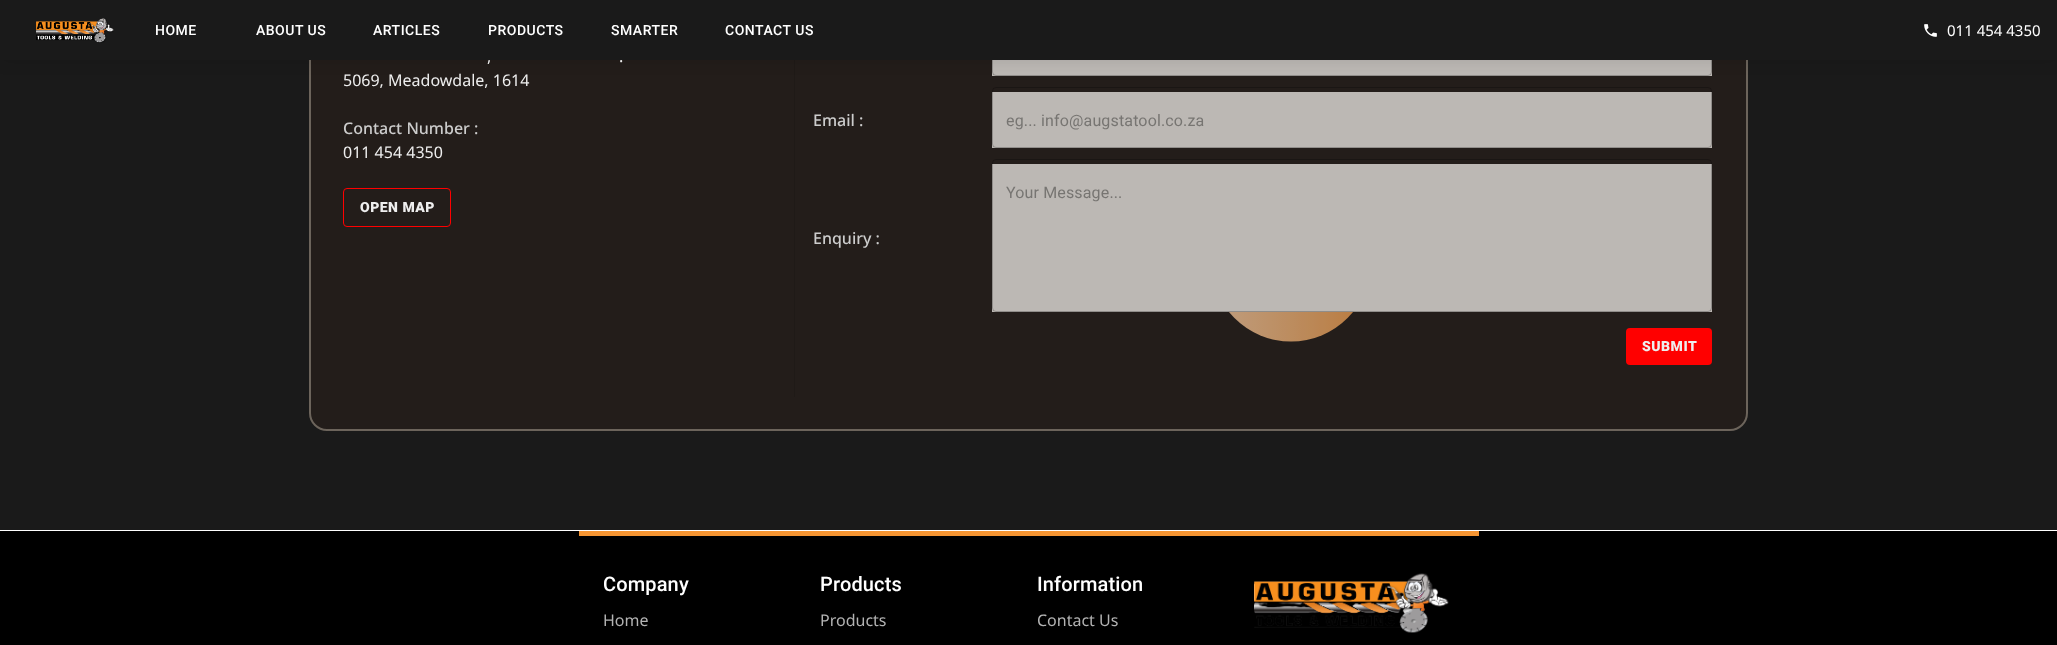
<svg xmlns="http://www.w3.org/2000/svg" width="2057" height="645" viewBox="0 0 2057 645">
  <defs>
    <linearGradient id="g1" gradientUnits="userSpaceOnUse" x1="1131" y1="262" x2="1451" y2="262"><stop offset="0.1" stop-color="#dfc9b3"/><stop offset="0.9" stop-color="#d3802c"/></linearGradient>
  </defs>
  <rect width="100%" height="100%" fill="#fff"/>
  <path d="M0 60h2057v470H0z" fill="#1a1a1a"/>
  <circle cx="1291" cy="261.5" r="80" fill="url(#g1)"/>
  <rect x="310" y="-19" width="1437" height="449" rx="17" fill="#4a2c1c33" stroke="#6c645b" stroke-width="2"/>
  <path d="M794 60h1v337H794z" fill="#1f1a17"/>
  <path d="M992 60h720v16H992z" fill="#bcb8b4"/>
  <rect x="992.5" y="15.5" width="719" height="60" rx="3.5" fill="none" stroke="#0000003b"/>
  <path d="M0 -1h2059v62H0z" fill="#0000001a" filter="blur(7.5px)"/>
  <path d="M0 0h2057v60H0z" fill="#1a1a1a"/>
  <image x="36" y="18" width="78" height="25" href="img/1.png"/>
  <image x="1924" y="24" width="13" height="13" href="img/2.png"/>
  <rect x="343.5" y="188.5" width="107" height="38" rx="3.5" fill="none" stroke="#f00"/>
  <path d="M992 92h720v56H992z" fill="#bcb8b4"/>
  <rect x="992.5" y="87.5" width="719" height="60" rx="3.5" fill="none" stroke="#0000003b"/>
  <path d="M992 164h720v148H992z" fill="#bcb8b4"/>
  <rect x="992.5" y="159.5" width="719" height="152" rx="3.5" fill="none" stroke="#0000003b"/>
  <rect x="1626" y="328" width="86" height="37" rx="4" fill="#f00"/>
  <path d="M0 531h2057v114H0z" fill="#000"/>
  <path d="M579 531h900v5H579z" fill="#f79633"/>
  <image x="1254" y="573" width="195" height="60" href="img/3.png"/>
  <g font-family="Roboto" font-size="14" font-weight="500" letter-spacing="0.5" fill="#fff">
    <text x="155" y="35">HOME</text>
    <text x="256" y="35">ABOUT US</text>
    <text x="373" y="35">ARTICLES</text>
    <text x="488" y="35">PRODUCTS</text>
    <text x="611" y="35">SMARTER</text>
    <text x="725" y="35">CONTACT US</text>
  </g>
  <text x="1947" y="36" font-family="Noto Sans" font-size="15" fill="#fff">011 454 4350</text>
  <g font-family="Noto Sans" font-size="16" fill="#eee">
    <text x="487" y="62">,</text>
    <text x="619" y="62">.</text>
    <text x="343" y="86">5069, Meadowdale, 1614</text>
  </g>
  <text x="343" y="134" font-family="Noto Sans" font-size="16" font-weight="500" fill="#ccc">Contact Number :</text>
  <text x="343" y="158" font-family="Noto Sans" font-size="16" fill="#eee">011 454 4350</text>
  <text x="360" y="212" font-family="Roboto" font-size="14" font-weight="900" letter-spacing="0.5" fill="#eee">OPEN MAP</text>
  <text x="813" y="126" font-family="Noto Sans" font-size="16" font-weight="500" fill="#ccc">Email :</text>
  <g font-family="Roboto" font-size="16" letter-spacing="0.15" fill="#777572">
    <text x="1006" y="126">eg... info@augstatool.co.za</text>
    <text x="1006" y="198">Your Message...</text>
  </g>
  <text x="813" y="244" font-family="Noto Sans" font-size="16" font-weight="500" fill="#ccc">Enquiry :</text>
  <text x="1642" y="351" font-family="Roboto" font-size="14" font-weight="900" letter-spacing="0.5" fill="#eee">SUBMIT</text>
  <text x="603" y="591" font-family="Roboto" font-size="20" font-weight="500" letter-spacing="0.15" fill="#fff">Company</text>
  <text x="603" y="626" font-family="Noto Sans" font-size="16" fill="#b3b3b3">Home</text>
  <text x="820" y="591" font-family="Roboto" font-size="20" font-weight="500" letter-spacing="0.15" fill="#fff">Products</text>
  <text x="820" y="626" font-family="Noto Sans" font-size="16" fill="#b3b3b3">Products</text>
  <text x="1037" y="591" font-family="Roboto" font-size="20" font-weight="500" letter-spacing="0.15" fill="#fff">Information</text>
  <text x="1037" y="626" font-family="Noto Sans" font-size="16" fill="#b3b3b3">Contact Us</text>
</svg>
